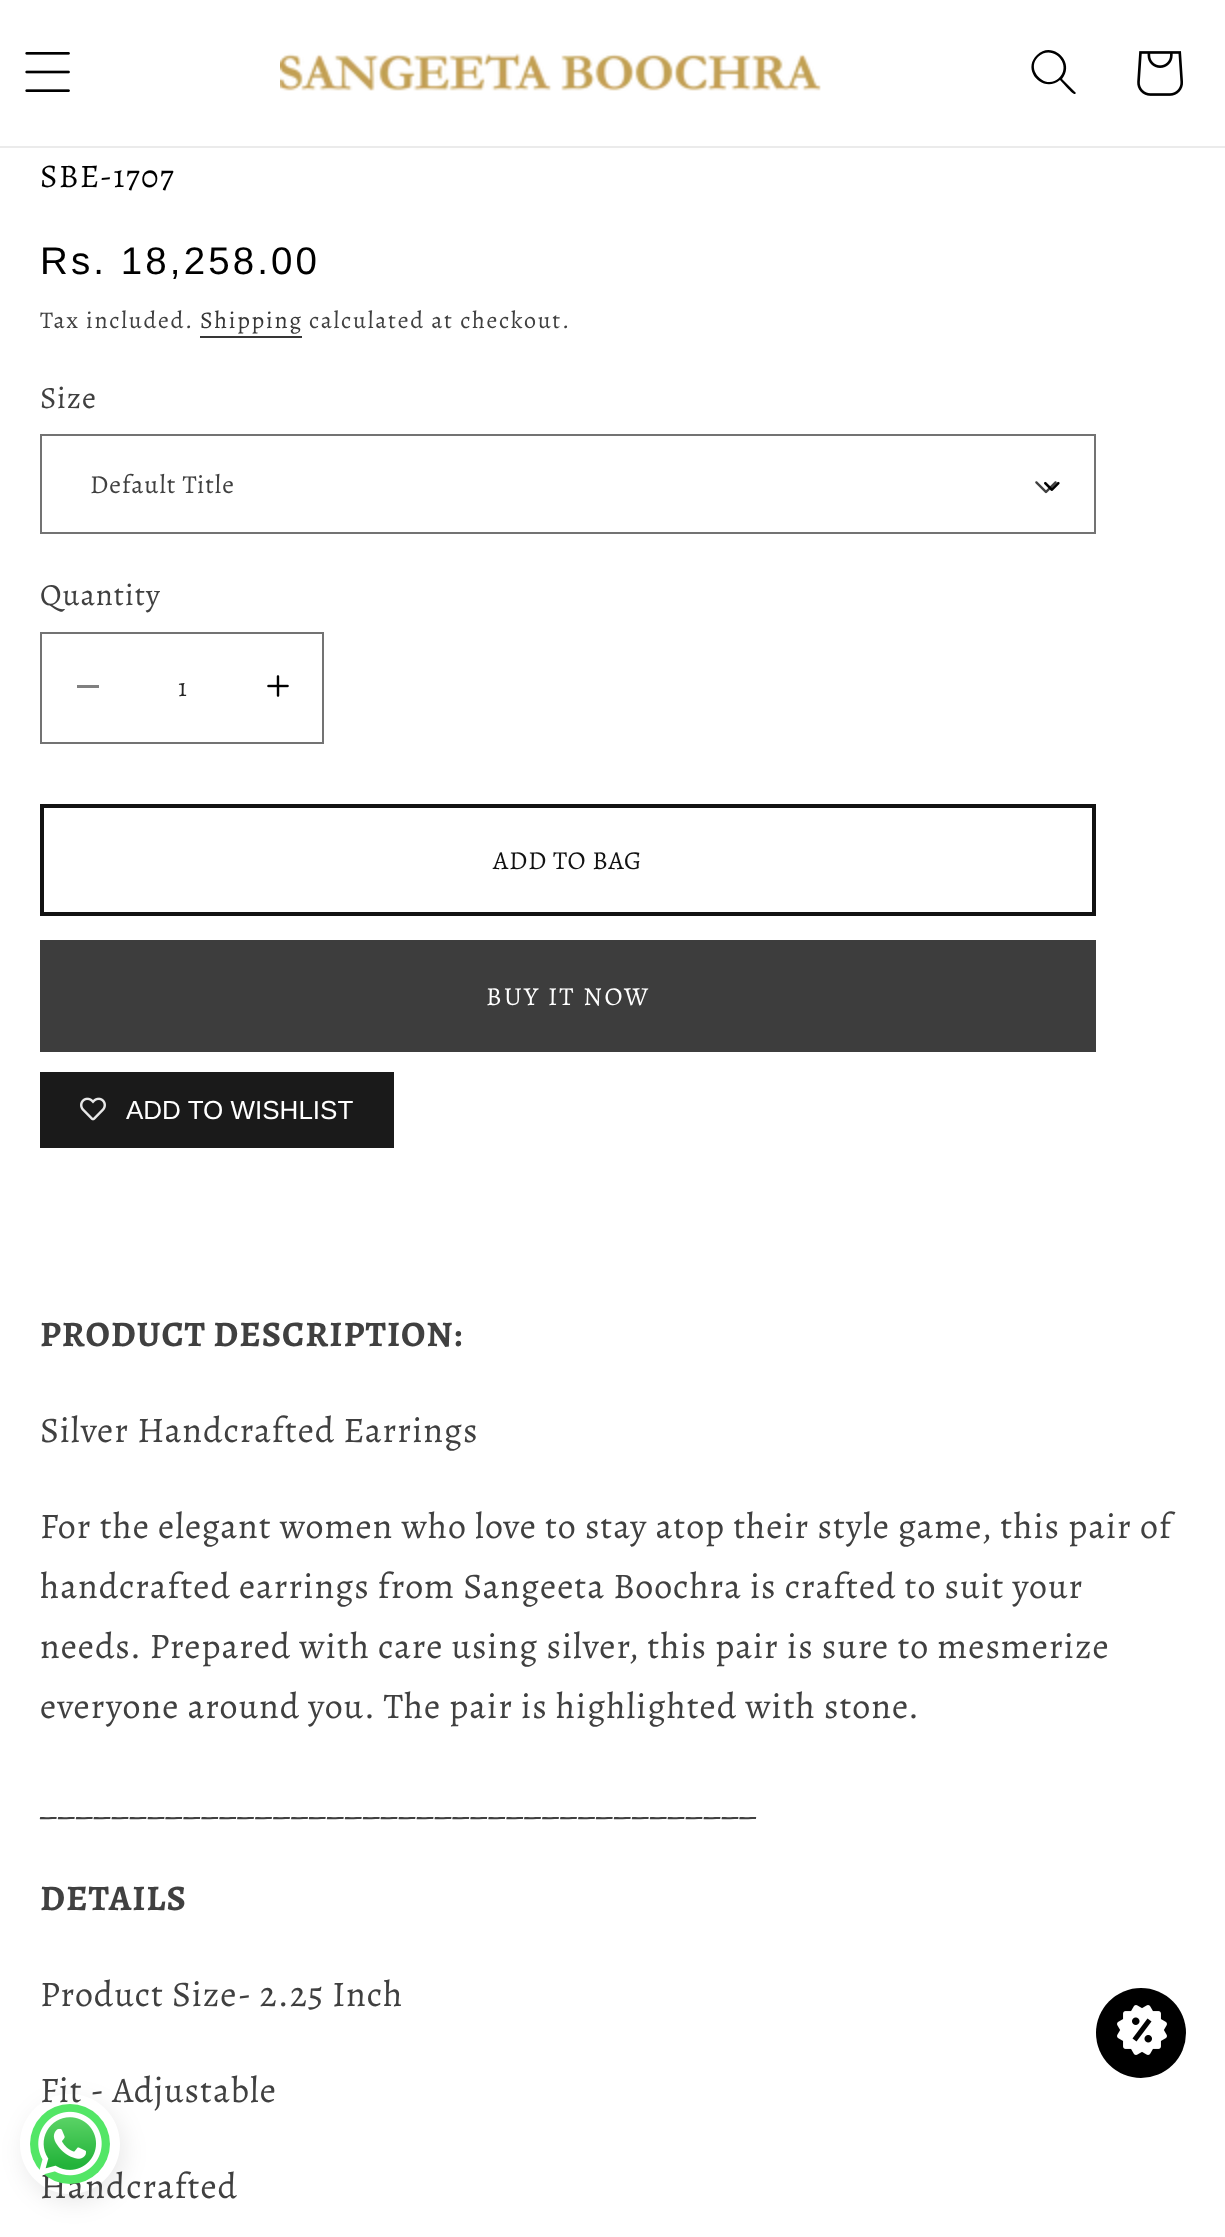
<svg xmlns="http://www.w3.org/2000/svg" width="1225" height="2237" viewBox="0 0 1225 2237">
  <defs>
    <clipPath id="clip1"><path d="M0 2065H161V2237H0ZM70 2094C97.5 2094 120 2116.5 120 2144C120 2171.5 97.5 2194 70 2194C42.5 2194 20 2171.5 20 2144C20 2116.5 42.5 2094 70 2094Z" clip-rule="evenodd"/></clipPath>
  </defs>
  <rect width="100%" height="100%" fill="#fff"/>
  <path d="M0 146h1225v2H0z" fill="#ebebeb"/>
  <image x="25" y="52" width="45" height="40" href="img/1.png"/>
  <image x="280" y="53" width="541" height="38" href="img/2.png"/>
  <path d="M1059 78C1046 91 1025 70 1038 57C1052 43 1073 64 1059 78ZM1060 80C1043 94 1021 70 1037 55C1052 40 1076 62 1062 79L1076 93L1075 94C1073 95 1062 82 1060 80Z" fill="#000" fill-rule="evenodd"/>
  <image x="1137" y="51" width="46" height="45" href="img/3.png"/>
  <path d="M200 336h102v2H200z" fill="#363636"/>
  <image x="1044" y="481" width="16" height="10" href="img/4.png"/>
  <image x="1035" y="481" width="22" height="13" href="img/5.png"/>
  <path d="M41 435h1054v98H41z" fill="none" stroke="#737373" stroke-width="2"/>
  <path d="M77 685h22v3H77z" fill="#808080"/>
  <image x="267" y="675" width="22" height="22" href="img/6.png"/>
  <path d="M41 633h282v110H41z" fill="none" stroke="#737373" stroke-width="2"/>
  <path d="M42 806h1052v108H42z" fill="none" stroke="#121212" stroke-width="4"/>
  <path d="M40 940h1056v112H40z" fill="#3d3d3d"/>
  <path d="M40 1072h354v76H40z" fill="#1a1a1a"/>
  <image x="80" y="1097" width="26" height="24" href="img/7.png"/>
  <circle cx="1141" cy="2033" r="45" fill="#000"/>
  <image x="1117" y="2005" width="50" height="50" href="img/8.png"/>
  <g clip-path="url(#clip1)">
    <rect x="24" y="2102" width="100" height="100" rx="50" fill="#00000017" filter="blur(12px)"/>
  </g>
  <text x="40" y="187" font-family="Alegreya" font-size="33" letter-spacing="1.25" fill="#000">SBE-1707</text>
  <text x="40" y="274" font-family="Liberation Sans" font-size="38.5" letter-spacing="3.1" fill="#000">Rs. 18,258.00</text>
  <text x="40" y="328" font-family="Alegreya" font-size="24" letter-spacing="1.7" fill="#404040">Tax included.</text>
  <text x="200" y="328" font-family="Alegreya" font-size="24" letter-spacing="1.7" fill="#363636">Shipping</text>
  <text x="309" y="328" font-family="Alegreya" font-size="24" letter-spacing="1.7" fill="#404040">calculated at checkout.</text>
  <text x="40" y="408" font-family="Alegreya" font-size="31" letter-spacing="1" fill="#404040">Size</text>
  <text x="90" y="493" font-family="Alegreya" font-size="26" letter-spacing="1" fill="#404040">Default Title</text>
  <text x="40" y="605" font-family="Alegreya" font-size="31" letter-spacing="1" fill="#404040">Quantity</text>
  <text x="178" y="696" font-family="Alegreya" font-size="26" fill="#262626">1</text>
  <text x="493" y="869" font-family="Alegreya" font-size="26" letter-spacing="0.75" fill="#121212">ADD TO BAG</text>
  <text x="486" y="1005" font-family="Alegreya" font-size="26" letter-spacing="2.4" fill="#fff">BUY IT NOW</text>
  <text x="126" y="1119" font-family="Liberation Sans" font-size="26" fill="#fff">ADD TO WISHLIST</text>
  <text x="40" y="1346" font-family="Alegreya" font-size="36" font-weight="bold" letter-spacing="1" fill="#404040">PRODUCT DESCRIPTION:</text>
  <g font-family="Alegreya" font-size="36" letter-spacing="1" fill="#404040">
    <text x="40" y="1442">Silver Handcrafted Earrings</text>
    <text x="40" y="1538">For the elegant women who love to stay atop their style game, this pair of</text>
    <text x="40" y="1598">handcrafted earrings from Sangeeta Boochra is crafted to suit your</text>
    <text x="40" y="1658">needs. Prepared with care using silver, this pair is sure to mesmerize</text>
    <text x="40" y="1718">everyone around you. The pair is highlighted with stone.</text>
  </g>
  <text x="40" y="1814" font-family="Alegreya" font-size="36" letter-spacing="1.45" fill="#404040">________________________________________</text>
  <text x="40" y="1910" font-family="Alegreya" font-size="36" font-weight="bold" letter-spacing="1" fill="#404040">DETAILS</text>
  <g font-family="Alegreya" font-size="36" letter-spacing="1" fill="#404040">
    <text x="40" y="2006">Product Size- 2.25 Inch</text>
    <text x="40" y="2102">Fit - Adjustable</text>
    <text x="40" y="2198">Handcrafted</text>
  </g>
  <circle cx="70" cy="2144" r="40" fill="#53e666"/>
  <image x="38" y="2111" width="64" height="65" href="img/9.png"/>
</svg>
